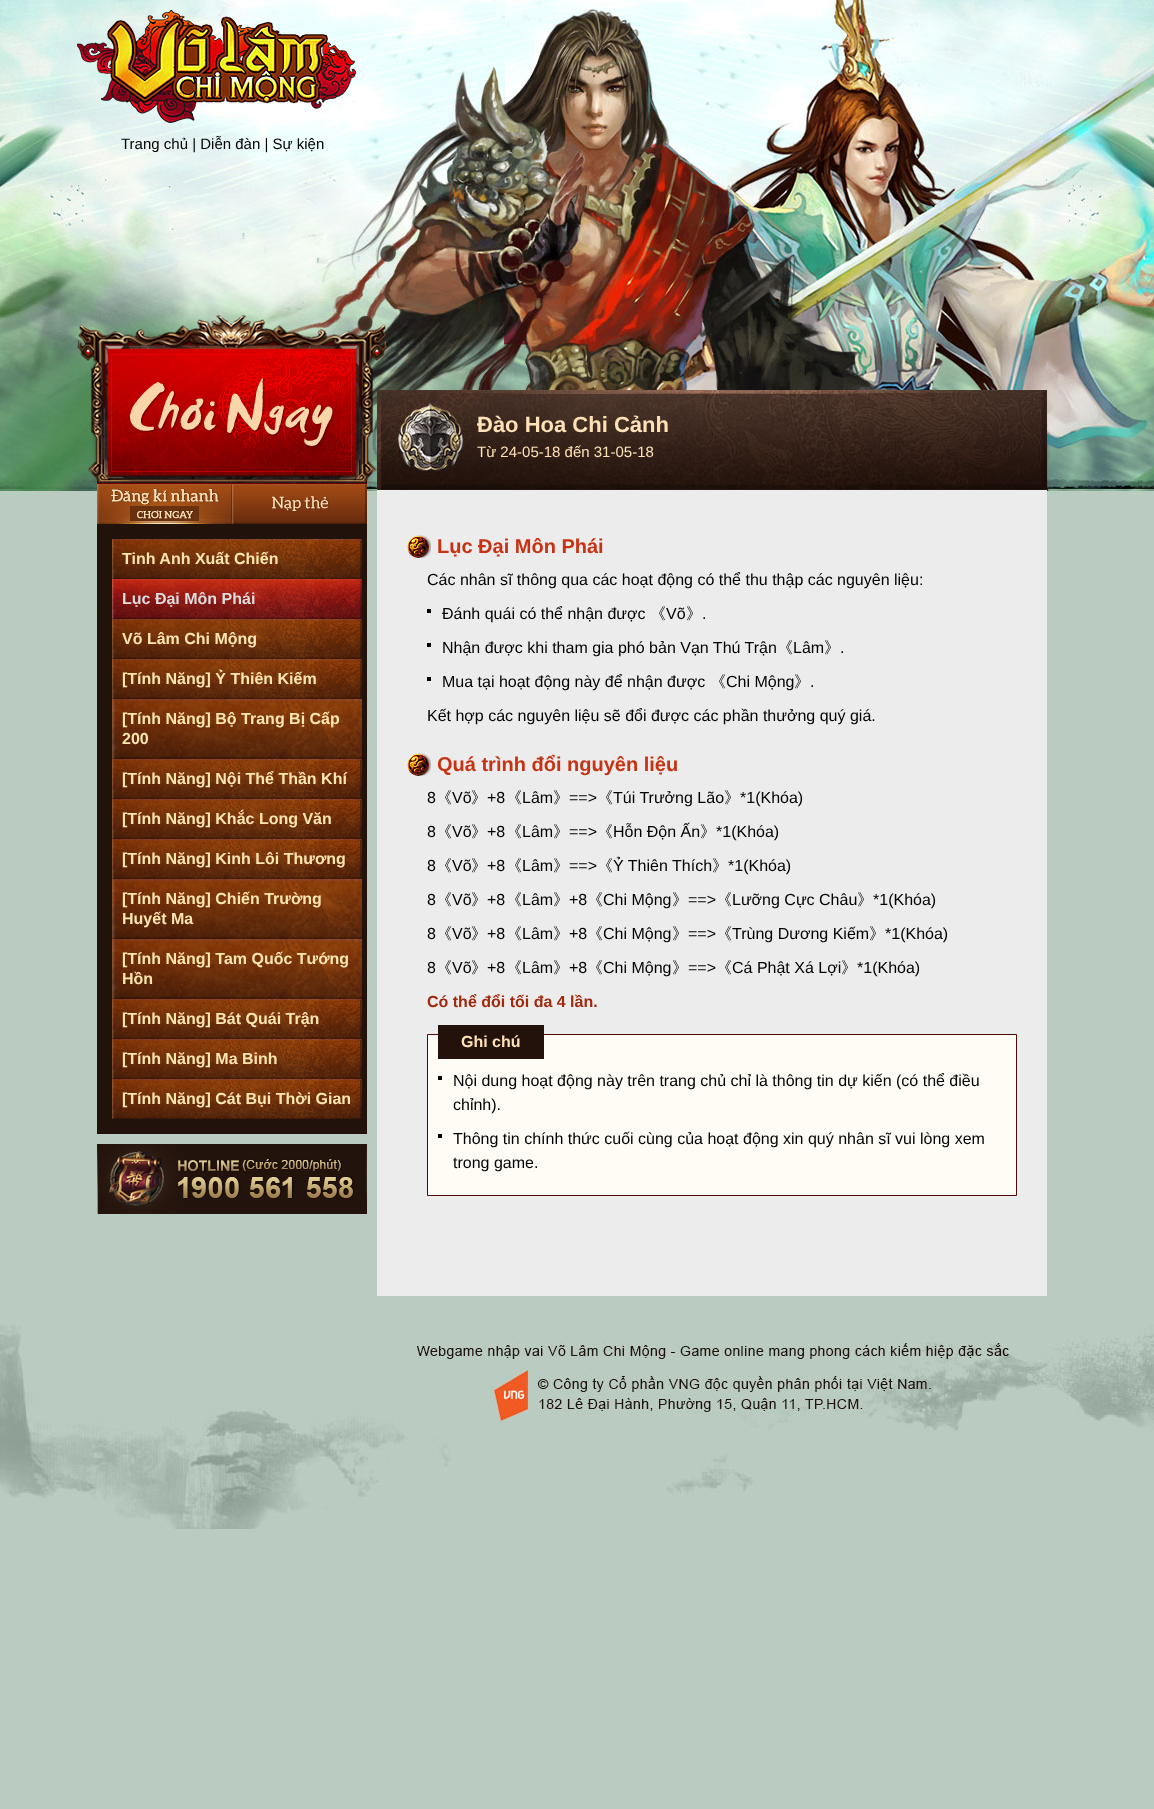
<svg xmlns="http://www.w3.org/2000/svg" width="1154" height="1809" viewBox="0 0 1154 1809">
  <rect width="100%" height="100%" fill="#bacbc1"/>
  <image x="0" y="1324" width="1154" height="205" href="img/1.png"/>
  <image x="0" y="0" width="1154" height="494" href="img/2.png"/>
  <image x="77" y="10" width="279" height="113" href="img/3.png"/>
  <image x="377" y="390" width="670" height="100" href="img/4.png"/>
  <image x="77" y="315" width="311" height="169" href="img/5.png"/>
  <image x="97" y="484" width="135" height="40" href="img/6.png"/>
  <image x="232" y="484" width="135" height="40" href="img/7.png"/>
  <path d="M97 524h270v610H97z" fill="#21120b"/>
  <image x="112" y="539" width="250" height="40" href="img/8.png"/>
  <image x="112" y="579" width="250" height="40" href="img/9.png"/>
  <image x="112" y="619" width="250" height="40" href="img/8.png"/>
  <image x="112" y="659" width="250" height="40" href="img/8.png"/>
  <image x="112" y="699" width="250" height="60" href="img/10.png"/>
  <image x="112" y="759" width="250" height="40" href="img/8.png"/>
  <image x="112" y="799" width="250" height="40" href="img/8.png"/>
  <image x="112" y="839" width="250" height="40" href="img/8.png"/>
  <image x="112" y="879" width="250" height="60" href="img/10.png"/>
  <image x="112" y="939" width="250" height="60" href="img/10.png"/>
  <image x="112" y="999" width="250" height="40" href="img/8.png"/>
  <image x="112" y="1039" width="250" height="40" href="img/8.png"/>
  <image x="112" y="1079" width="250" height="40" href="img/8.png"/>
  <image x="97" y="1144" width="270" height="70" href="img/11.png"/>
  <path d="M377 490h670v806H377z" fill="#ececec"/>
  <image x="407" y="535" width="24" height="23" href="img/12.png"/>
  <path d="M427 609h4v4H427z" fill="#000"/>
  <path d="M427 643h4v4H427z" fill="#000"/>
  <path d="M427 677h4v4H427z" fill="#000"/>
  <image x="407" y="753" width="24" height="23" href="img/12.png"/>
  <path d="M427.5 1034.5h589v161H427.5z" fill="#fffcf6" stroke="#520909"/>
  <path d="M438 1025h106v34H438z" fill="#23120b"/>
  <path d="M438 1076h4v4H438z" fill="#000"/>
  <path d="M438 1134h4v4H438z" fill="#000"/>
  <text x="121" y="149" font-family="Liberation Sans" font-size="15" fill="#000">Trang chủ | Diễn đàn | Sự kiện</text>
  <text x="477" y="432" font-family="Liberation Sans" font-size="22" font-weight="bold" fill="#ffe1b7">Đào Hoa Chi Cảnh</text>
  <text x="477" y="457" font-family="Liberation Sans" font-size="15" fill="#ffe1b7">Từ 24-05-18 đến 31-05-18</text>
  <text x="122" y="564" font-family="Liberation Sans" font-size="16" font-weight="bold" fill="#ffe6b1">Tinh Anh Xuất Chiến</text>
  <text x="122" y="604" font-family="Liberation Sans" font-size="16" font-weight="bold" fill="#ddd">Lục Đại Môn Phái</text>
  <g font-family="Liberation Sans" font-size="16" font-weight="bold" fill="#ffe6b1">
    <text x="122" y="644">Võ Lâm Chi Mộng</text>
    <text x="122" y="684">[Tính Năng] Ỷ Thiên Kiếm</text>
    <text x="122" y="724">[Tính Năng] Bộ Trang Bị Cấp</text>
    <text x="122" y="744">200</text>
    <text x="122" y="784">[Tính Năng] Nội Thể Thần Khí</text>
    <text x="122" y="824">[Tính Năng] Khắc Long Văn</text>
    <text x="122" y="864">[Tính Năng] Kinh Lôi Thương</text>
    <text x="122" y="904">[Tính Năng] Chiến Trường</text>
    <text x="122" y="924">Huyết Ma</text>
    <text x="122" y="964">[Tính Năng] Tam Quốc Tướng</text>
    <text x="122" y="984">Hồn</text>
    <text x="122" y="1024">[Tính Năng] Bát Quái Trận</text>
    <text x="122" y="1064">[Tính Năng] Ma Binh</text>
    <text x="122" y="1104">[Tính Năng] Cát Bụi Thời Gian</text>
  </g>
  <text x="437" y="553" font-family="Liberation Sans" font-size="20" font-weight="bold" fill="#c73212">Lục Đại Môn Phái</text>
  <g font-family="Liberation Sans" font-size="16" fill="#000">
    <text x="427" y="585">Các nhân sĩ thông qua các hoạt động có thể thu thập các nguyên liệu:</text>
    <text x="442" y="619">Đánh quái có thể nhận được</text>
  </g>
  <text x="650" y="619" font-family="WenQuanYi Zen Hei" font-size="16" font-weight="500" fill="#000">《</text>
  <text x="666" y="619" font-family="Liberation Sans" font-size="16" fill="#000">Võ</text>
  <text x="686" y="619" font-family="WenQuanYi Zen Hei" font-size="16" font-weight="500" fill="#000">》</text>
  <g font-family="Liberation Sans" font-size="16" fill="#000">
    <text x="702" y="619">.</text>
    <text x="442" y="653">Nhận được khi tham gia phó bản Vạn Thú Trận</text>
  </g>
  <text x="777" y="653" font-family="WenQuanYi Zen Hei" font-size="16" font-weight="500" fill="#000">《</text>
  <text x="793" y="653" font-family="Liberation Sans" font-size="16" fill="#000">Lâm</text>
  <text x="824" y="653" font-family="WenQuanYi Zen Hei" font-size="16" font-weight="500" fill="#000">》</text>
  <g font-family="Liberation Sans" font-size="16" fill="#000">
    <text x="840" y="653">.</text>
    <text x="442" y="687">Mua tại hoạt động này để nhận được</text>
  </g>
  <text x="710" y="687" font-family="WenQuanYi Zen Hei" font-size="16" font-weight="500" fill="#000">《</text>
  <text x="726" y="687" font-family="Liberation Sans" font-size="16" fill="#000">Chi Mộng</text>
  <text x="794" y="687" font-family="WenQuanYi Zen Hei" font-size="16" font-weight="500" fill="#000">》</text>
  <g font-family="Liberation Sans" font-size="16" fill="#000">
    <text x="810" y="687">.</text>
    <text x="427" y="721">Kết hợp các nguyên liệu sẽ đổi được các phần thưởng quý giá.</text>
  </g>
  <text x="437" y="771" font-family="Liberation Sans" font-size="20" font-weight="bold" fill="#c73212">Quá trình đổi nguyên liệu</text>
  <text x="427" y="803" font-family="Liberation Sans" font-size="16" fill="#000">8</text>
  <text x="436" y="803" font-family="WenQuanYi Zen Hei" font-size="16" font-weight="500" fill="#000">《</text>
  <text x="452" y="803" font-family="Liberation Sans" font-size="16" fill="#000">Võ</text>
  <text x="471" y="803" font-family="WenQuanYi Zen Hei" font-size="16" font-weight="500" fill="#000">》</text>
  <text x="487" y="803" font-family="Liberation Sans" font-size="16" fill="#000">+8</text>
  <text x="506" y="803" font-family="WenQuanYi Zen Hei" font-size="16" font-weight="500" fill="#000">《</text>
  <text x="522" y="803" font-family="Liberation Sans" font-size="16" fill="#000">Lâm</text>
  <text x="553" y="803" font-family="WenQuanYi Zen Hei" font-size="16" font-weight="500" fill="#000">》</text>
  <text x="569" y="803" font-family="Liberation Sans" font-size="16" fill="#000">==&gt;</text>
  <text x="597" y="803" font-family="WenQuanYi Zen Hei" font-size="16" font-weight="500" fill="#000">《</text>
  <text x="613" y="803" font-family="Liberation Sans" font-size="16" fill="#000">Túi Trưởng Lão</text>
  <text x="724" y="803" font-family="WenQuanYi Zen Hei" font-size="16" font-weight="500" fill="#000">》</text>
  <g font-family="Liberation Sans" font-size="16" fill="#000">
    <text x="740" y="803">*1(Khóa)</text>
    <text x="427" y="837">8</text>
  </g>
  <text x="436" y="837" font-family="WenQuanYi Zen Hei" font-size="16" font-weight="500" fill="#000">《</text>
  <text x="452" y="837" font-family="Liberation Sans" font-size="16" fill="#000">Võ</text>
  <text x="471" y="837" font-family="WenQuanYi Zen Hei" font-size="16" font-weight="500" fill="#000">》</text>
  <text x="487" y="837" font-family="Liberation Sans" font-size="16" fill="#000">+8</text>
  <text x="506" y="837" font-family="WenQuanYi Zen Hei" font-size="16" font-weight="500" fill="#000">《</text>
  <text x="522" y="837" font-family="Liberation Sans" font-size="16" fill="#000">Lâm</text>
  <text x="553" y="837" font-family="WenQuanYi Zen Hei" font-size="16" font-weight="500" fill="#000">》</text>
  <text x="569" y="837" font-family="Liberation Sans" font-size="16" fill="#000">==&gt;</text>
  <text x="597" y="837" font-family="WenQuanYi Zen Hei" font-size="16" font-weight="500" fill="#000">《</text>
  <text x="613" y="837" font-family="Liberation Sans" font-size="16" fill="#000">Hỗn Độn Ấn</text>
  <text x="700" y="837" font-family="WenQuanYi Zen Hei" font-size="16" font-weight="500" fill="#000">》</text>
  <g font-family="Liberation Sans" font-size="16" fill="#000">
    <text x="716" y="837">*1(Khóa)</text>
    <text x="427" y="871">8</text>
  </g>
  <text x="436" y="871" font-family="WenQuanYi Zen Hei" font-size="16" font-weight="500" fill="#000">《</text>
  <text x="452" y="871" font-family="Liberation Sans" font-size="16" fill="#000">Võ</text>
  <text x="471" y="871" font-family="WenQuanYi Zen Hei" font-size="16" font-weight="500" fill="#000">》</text>
  <text x="487" y="871" font-family="Liberation Sans" font-size="16" fill="#000">+8</text>
  <text x="506" y="871" font-family="WenQuanYi Zen Hei" font-size="16" font-weight="500" fill="#000">《</text>
  <text x="522" y="871" font-family="Liberation Sans" font-size="16" fill="#000">Lâm</text>
  <text x="553" y="871" font-family="WenQuanYi Zen Hei" font-size="16" font-weight="500" fill="#000">》</text>
  <text x="569" y="871" font-family="Liberation Sans" font-size="16" fill="#000">==&gt;</text>
  <text x="597" y="871" font-family="WenQuanYi Zen Hei" font-size="16" font-weight="500" fill="#000">《</text>
  <text x="613" y="871" font-family="Liberation Sans" font-size="16" fill="#000">Ỷ Thiên Thích</text>
  <text x="712" y="871" font-family="WenQuanYi Zen Hei" font-size="16" font-weight="500" fill="#000">》</text>
  <g font-family="Liberation Sans" font-size="16" fill="#000">
    <text x="728" y="871">*1(Khóa)</text>
    <text x="427" y="905">8</text>
  </g>
  <text x="436" y="905" font-family="WenQuanYi Zen Hei" font-size="16" font-weight="500" fill="#000">《</text>
  <text x="452" y="905" font-family="Liberation Sans" font-size="16" fill="#000">Võ</text>
  <text x="471" y="905" font-family="WenQuanYi Zen Hei" font-size="16" font-weight="500" fill="#000">》</text>
  <text x="487" y="905" font-family="Liberation Sans" font-size="16" fill="#000">+8</text>
  <text x="506" y="905" font-family="WenQuanYi Zen Hei" font-size="16" font-weight="500" fill="#000">《</text>
  <text x="522" y="905" font-family="Liberation Sans" font-size="16" fill="#000">Lâm</text>
  <text x="553" y="905" font-family="WenQuanYi Zen Hei" font-size="16" font-weight="500" fill="#000">》</text>
  <text x="569" y="905" font-family="Liberation Sans" font-size="16" fill="#000">+8</text>
  <text x="587" y="905" font-family="WenQuanYi Zen Hei" font-size="16" font-weight="500" fill="#000">《</text>
  <text x="603" y="905" font-family="Liberation Sans" font-size="16" fill="#000">Chi Mộng</text>
  <text x="672" y="905" font-family="WenQuanYi Zen Hei" font-size="16" font-weight="500" fill="#000">》</text>
  <text x="688" y="905" font-family="Liberation Sans" font-size="16" fill="#000">==&gt;</text>
  <text x="716" y="905" font-family="WenQuanYi Zen Hei" font-size="16" font-weight="500" fill="#000">《</text>
  <text x="732" y="905" font-family="Liberation Sans" font-size="16" fill="#000">Lưỡng Cực Châu</text>
  <text x="857" y="905" font-family="WenQuanYi Zen Hei" font-size="16" font-weight="500" fill="#000">》</text>
  <g font-family="Liberation Sans" font-size="16" fill="#000">
    <text x="873" y="905">*1(Khóa)</text>
    <text x="427" y="939">8</text>
  </g>
  <text x="436" y="939" font-family="WenQuanYi Zen Hei" font-size="16" font-weight="500" fill="#000">《</text>
  <text x="452" y="939" font-family="Liberation Sans" font-size="16" fill="#000">Võ</text>
  <text x="471" y="939" font-family="WenQuanYi Zen Hei" font-size="16" font-weight="500" fill="#000">》</text>
  <text x="487" y="939" font-family="Liberation Sans" font-size="16" fill="#000">+8</text>
  <text x="506" y="939" font-family="WenQuanYi Zen Hei" font-size="16" font-weight="500" fill="#000">《</text>
  <text x="522" y="939" font-family="Liberation Sans" font-size="16" fill="#000">Lâm</text>
  <text x="553" y="939" font-family="WenQuanYi Zen Hei" font-size="16" font-weight="500" fill="#000">》</text>
  <text x="569" y="939" font-family="Liberation Sans" font-size="16" fill="#000">+8</text>
  <text x="587" y="939" font-family="WenQuanYi Zen Hei" font-size="16" font-weight="500" fill="#000">《</text>
  <text x="603" y="939" font-family="Liberation Sans" font-size="16" fill="#000">Chi Mộng</text>
  <text x="672" y="939" font-family="WenQuanYi Zen Hei" font-size="16" font-weight="500" fill="#000">》</text>
  <text x="688" y="939" font-family="Liberation Sans" font-size="16" fill="#000">==&gt;</text>
  <text x="716" y="939" font-family="WenQuanYi Zen Hei" font-size="16" font-weight="500" fill="#000">《</text>
  <text x="732" y="939" font-family="Liberation Sans" font-size="16" fill="#000">Trùng Dương Kiếm</text>
  <text x="869" y="939" font-family="WenQuanYi Zen Hei" font-size="16" font-weight="500" fill="#000">》</text>
  <g font-family="Liberation Sans" font-size="16" fill="#000">
    <text x="885" y="939">*1(Khóa)</text>
    <text x="427" y="973">8</text>
  </g>
  <text x="436" y="973" font-family="WenQuanYi Zen Hei" font-size="16" font-weight="500" fill="#000">《</text>
  <text x="452" y="973" font-family="Liberation Sans" font-size="16" fill="#000">Võ</text>
  <text x="471" y="973" font-family="WenQuanYi Zen Hei" font-size="16" font-weight="500" fill="#000">》</text>
  <text x="487" y="973" font-family="Liberation Sans" font-size="16" fill="#000">+8</text>
  <text x="506" y="973" font-family="WenQuanYi Zen Hei" font-size="16" font-weight="500" fill="#000">《</text>
  <text x="522" y="973" font-family="Liberation Sans" font-size="16" fill="#000">Lâm</text>
  <text x="553" y="973" font-family="WenQuanYi Zen Hei" font-size="16" font-weight="500" fill="#000">》</text>
  <text x="569" y="973" font-family="Liberation Sans" font-size="16" fill="#000">+8</text>
  <text x="587" y="973" font-family="WenQuanYi Zen Hei" font-size="16" font-weight="500" fill="#000">《</text>
  <text x="603" y="973" font-family="Liberation Sans" font-size="16" fill="#000">Chi Mộng</text>
  <text x="672" y="973" font-family="WenQuanYi Zen Hei" font-size="16" font-weight="500" fill="#000">》</text>
  <text x="688" y="973" font-family="Liberation Sans" font-size="16" fill="#000">==&gt;</text>
  <text x="716" y="973" font-family="WenQuanYi Zen Hei" font-size="16" font-weight="500" fill="#000">《</text>
  <text x="732" y="973" font-family="Liberation Sans" font-size="16" fill="#000">Cá Phật Xá Lợi</text>
  <text x="841" y="973" font-family="WenQuanYi Zen Hei" font-size="16" font-weight="500" fill="#000">》</text>
  <text x="857" y="973" font-family="Liberation Sans" font-size="16" fill="#000">*1(Khóa)</text>
  <text x="427" y="1007" font-family="Liberation Sans" font-size="16" font-weight="bold" fill="#a1290c">Có thể đổi tối đa 4 lần.</text>
  <text x="461" y="1047" font-family="Liberation Sans" font-size="16" font-weight="bold" fill="#ffe1b7">Ghi chú</text>
  <g font-family="Liberation Sans" font-size="16" fill="#000">
    <text x="453" y="1086">Nội dung hoạt động này trên trang chủ chỉ là thông tin dự kiến (có thể điều</text>
    <text x="453" y="1110">chỉnh).</text>
    <text x="453" y="1144">Thông tin chính thức cuối cùng của hoạt động xin quý nhân sĩ vui lòng xem</text>
    <text x="453" y="1168">trong game.</text>
  </g>
</svg>
